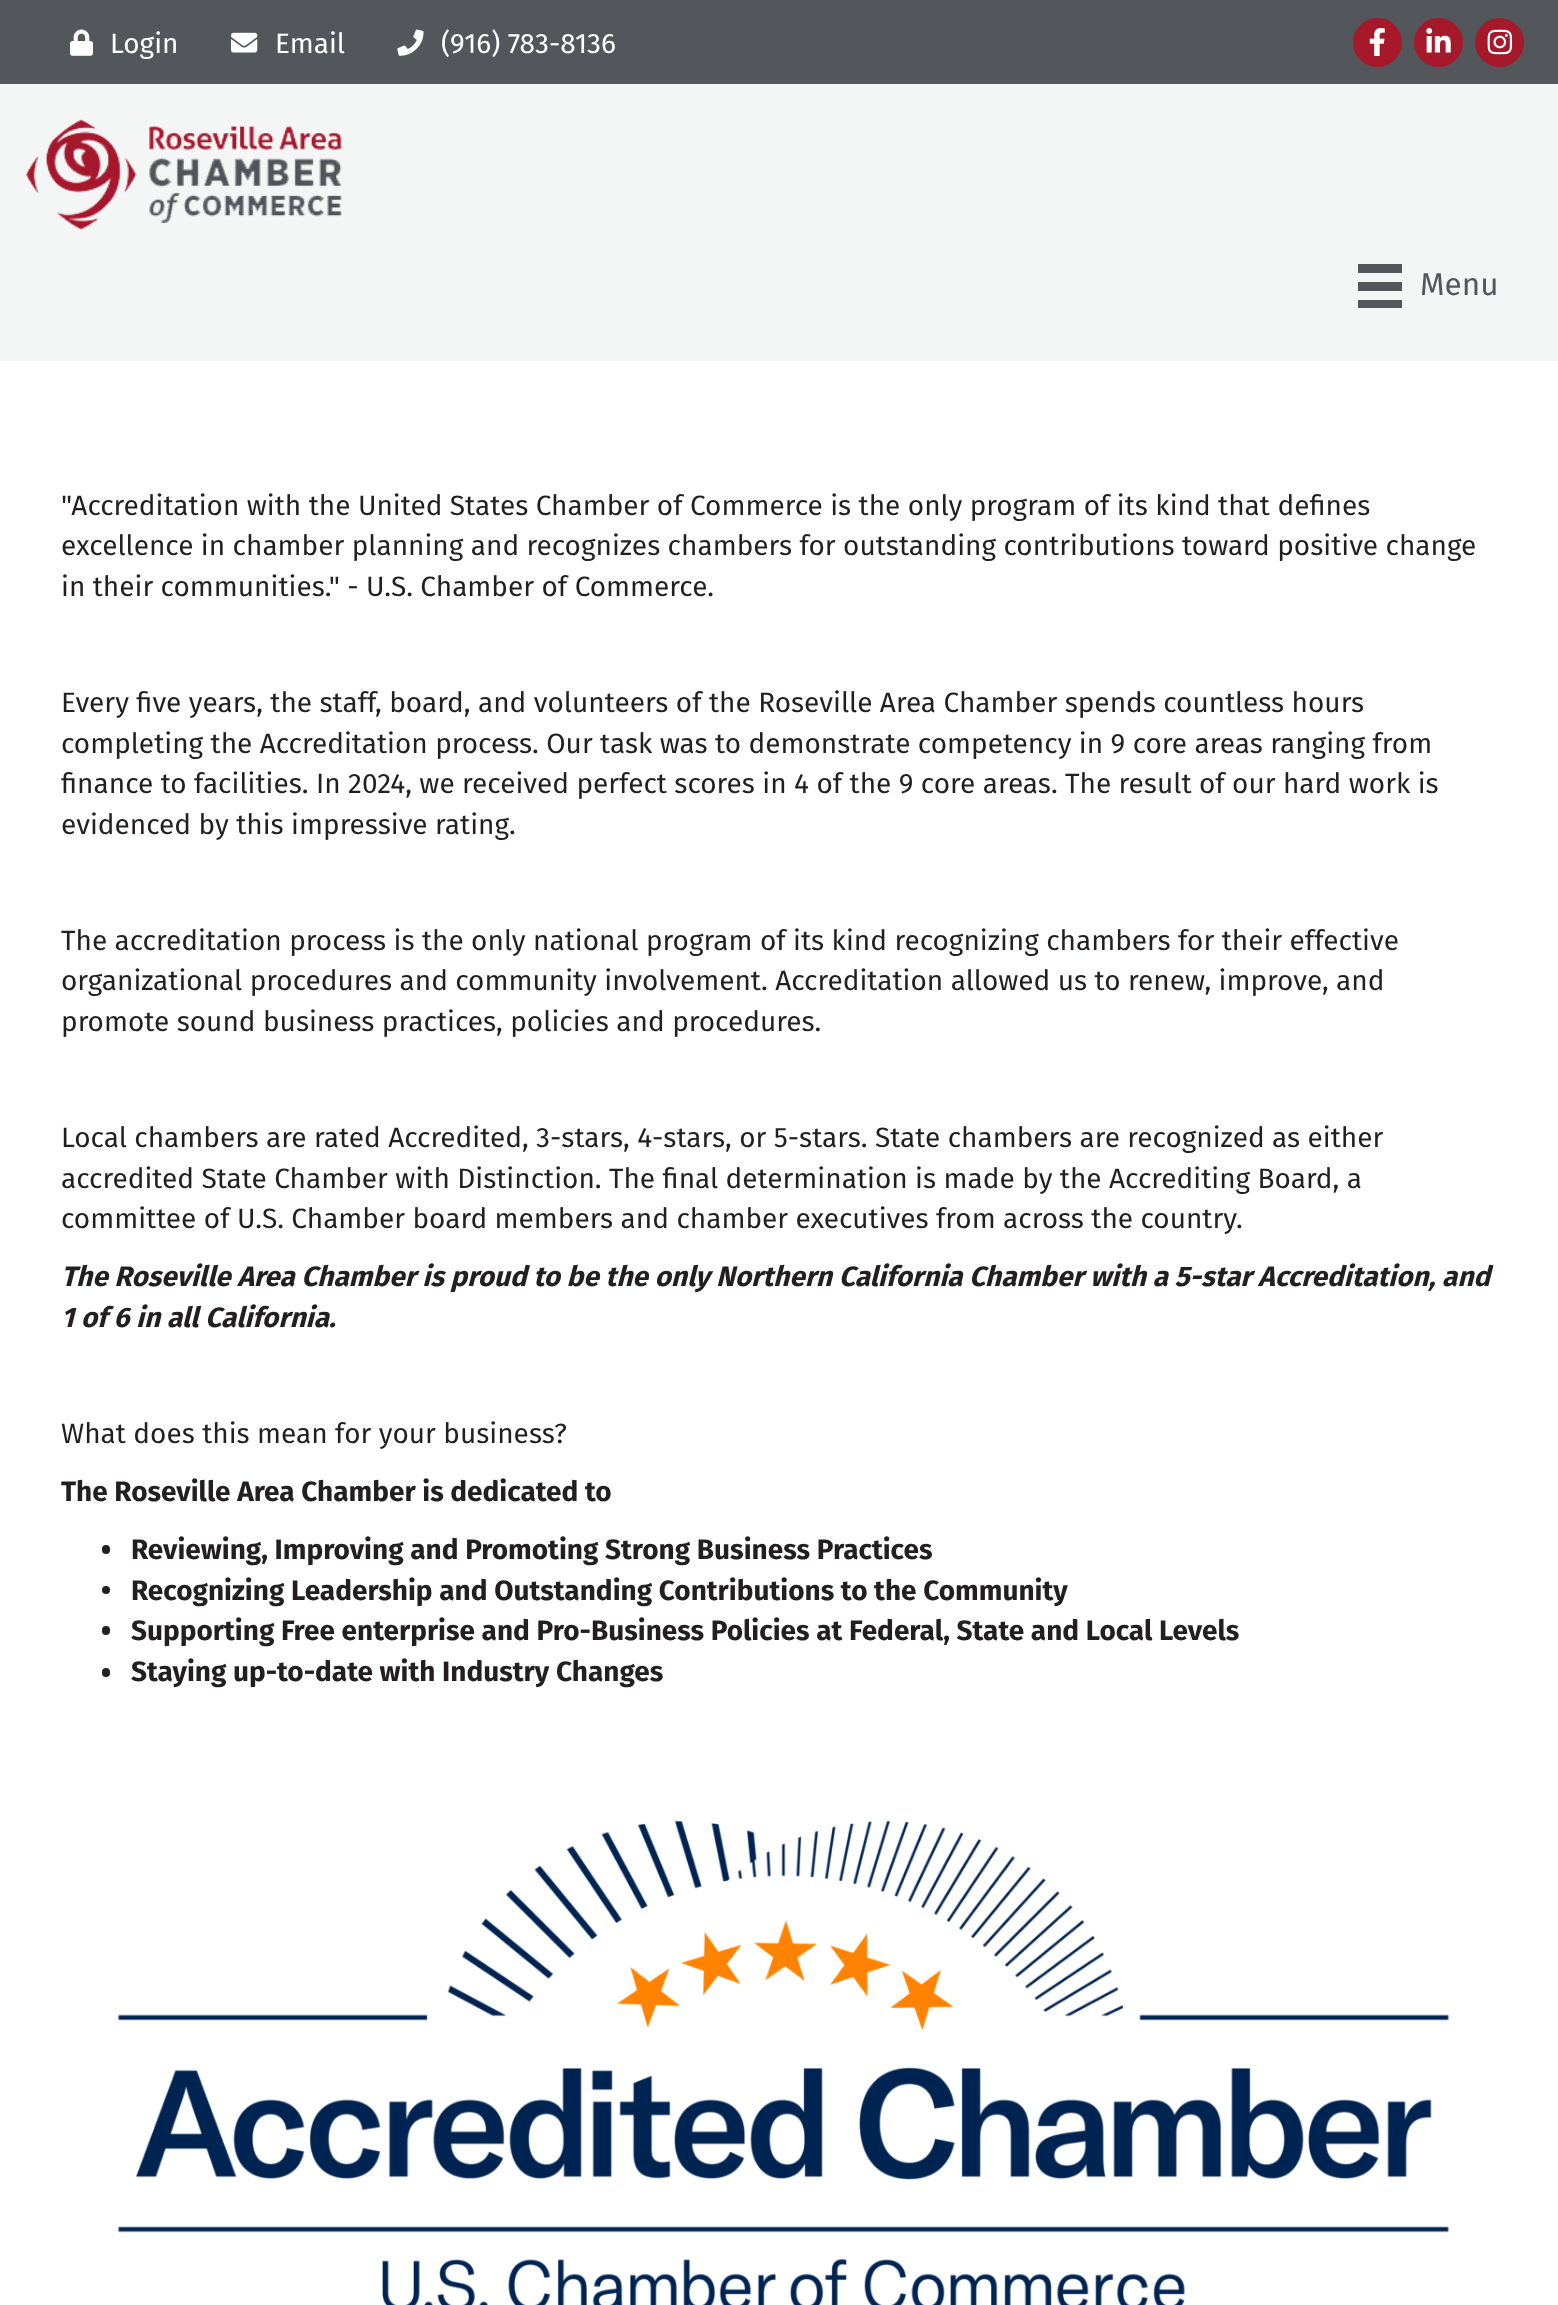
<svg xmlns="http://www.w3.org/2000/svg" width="1558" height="2305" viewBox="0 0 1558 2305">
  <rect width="100%" height="100%" fill="#53565b"/>
  <image x="70" y="29" width="23" height="27" href="img/1.png"/>
  <image x="231" y="32" width="27" height="21" href="img/2.png"/>
  <image x="397" y="29" width="27" height="27" href="img/3.png"/>
  <circle cx="1377.5" cy="42.5" r="24.5" fill="#a6192a"/>
  <image x="1369" y="28" width="16" height="28" href="img/4.png"/>
  <circle cx="1438.5" cy="42.5" r="24.5" fill="#a6192a"/>
  <image x="1426" y="28" width="25" height="25" href="img/5.png"/>
  <circle cx="1499.5" cy="42.5" r="24.5" fill="#a6192a"/>
  <image x="1487" y="29" width="26" height="26" href="img/6.png"/>
  <path d="M0 84h1558v277H0z" fill="#f4f5f5"/>
  <image x="26" y="119" width="316" height="111" href="img/7.png"/>
  <path d="M1358 264h44v9H1358z" fill="#53565b"/>
  <path d="M1358 282h44v9H1358z" fill="#53565b"/>
  <path d="M1358 300h44v8H1358z" fill="#53565b"/>
  <path d="M0 361h1558v1944H0z" fill="#fff"/>
  <rect x="102" y="1545" width="8" height="9" rx="4" fill="#231f20"/>
  <circle cx="106" cy="1590" r="4" fill="#231f20"/>
  <rect x="102" y="1626" width="8" height="9" rx="4" fill="#231f20"/>
  <rect x="102" y="1668" width="8" height="9" rx="4" fill="#231f20"/>
  <image x="118" y="1820" width="1332" height="485" href="img/8.png"/>
  <g font-family="Fira Sans" font-size="28" fill="#fff">
    <text x="110" y="53">Login</text>
    <text x="275" y="53">Email</text>
    <text x="441" y="53">(916) 783-8136</text>
  </g>
  <text x="1420" y="295" font-family="Fira Sans" font-size="31.5" fill="#53565b">Menu</text>
  <g font-family="Fira Sans" font-size="28" fill="#231f20">
    <text x="61" y="515">"Accreditation with the United States Chamber of Commerce is the only program of its kind that defines</text>
    <text x="61" y="555">excellence in chamber planning and recognizes chambers for outstanding contributions toward positive change</text>
    <text x="61" y="596">in their communities." - U.S. Chamber of Commerce.</text>
    <text x="61" y="712">Every five years, the staff, board, and volunteers of the Roseville Area Chamber spends countless hours</text>
    <text x="61" y="753">completing the Accreditation process. Our task was to demonstrate competency in 9 core areas ranging from</text>
    <text x="61" y="793">finance to facilities. In 2024, we received perfect scores in 4 of the 9 core areas. The result of our hard work is</text>
    <text x="61" y="834">evidenced by this impressive rating.</text>
    <text x="61" y="950">The accreditation process is the only national program of its kind recognizing chambers for their effective</text>
    <text x="61" y="990">organizational procedures and community involvement. Accreditation allowed us to renew, improve, and</text>
    <text x="61" y="1031">promote sound business practices, policies and procedures.</text>
    <text x="61" y="1147">Local chambers are rated Accredited, 3-stars, 4-stars, or 5-stars. State chambers are recognized as either</text>
    <text x="61" y="1188">accredited State Chamber with Distinction. The final determination is made by the Accrediting Board, a</text>
    <text x="61" y="1228">committee of U.S. Chamber board members and chamber executives from across the country.</text>
  </g>
  <g font-family="Fira Sans" font-size="28" font-weight="bold" font-style="italic" fill="#231f20">
    <text x="61" y="1286">The Roseville Area Chamber is proud to be the only Northern California Chamber with a 5-star Accreditation, and</text>
    <text x="61" y="1327">1 of 6 in all California.</text>
  </g>
  <text x="61" y="1443" font-family="Fira Sans" font-size="28" fill="#231f20">What does this mean for your business?</text>
  <g font-family="Fira Sans" font-size="28" font-weight="bold" fill="#231f20">
    <text x="61" y="1501">The Roseville Area Chamber is dedicated to</text>
    <text x="131" y="1559">Reviewing, Improving and Promoting Strong Business Practices</text>
    <text x="131" y="1600">Recognizing Leadership and Outstanding Contributions to the Community</text>
    <text x="131" y="1640">Supporting Free enterprise and Pro-Business Policies at Federal, State and Local Levels</text>
    <text x="131" y="1681">Staying up-to-date with Industry Changes</text>
  </g>
</svg>
